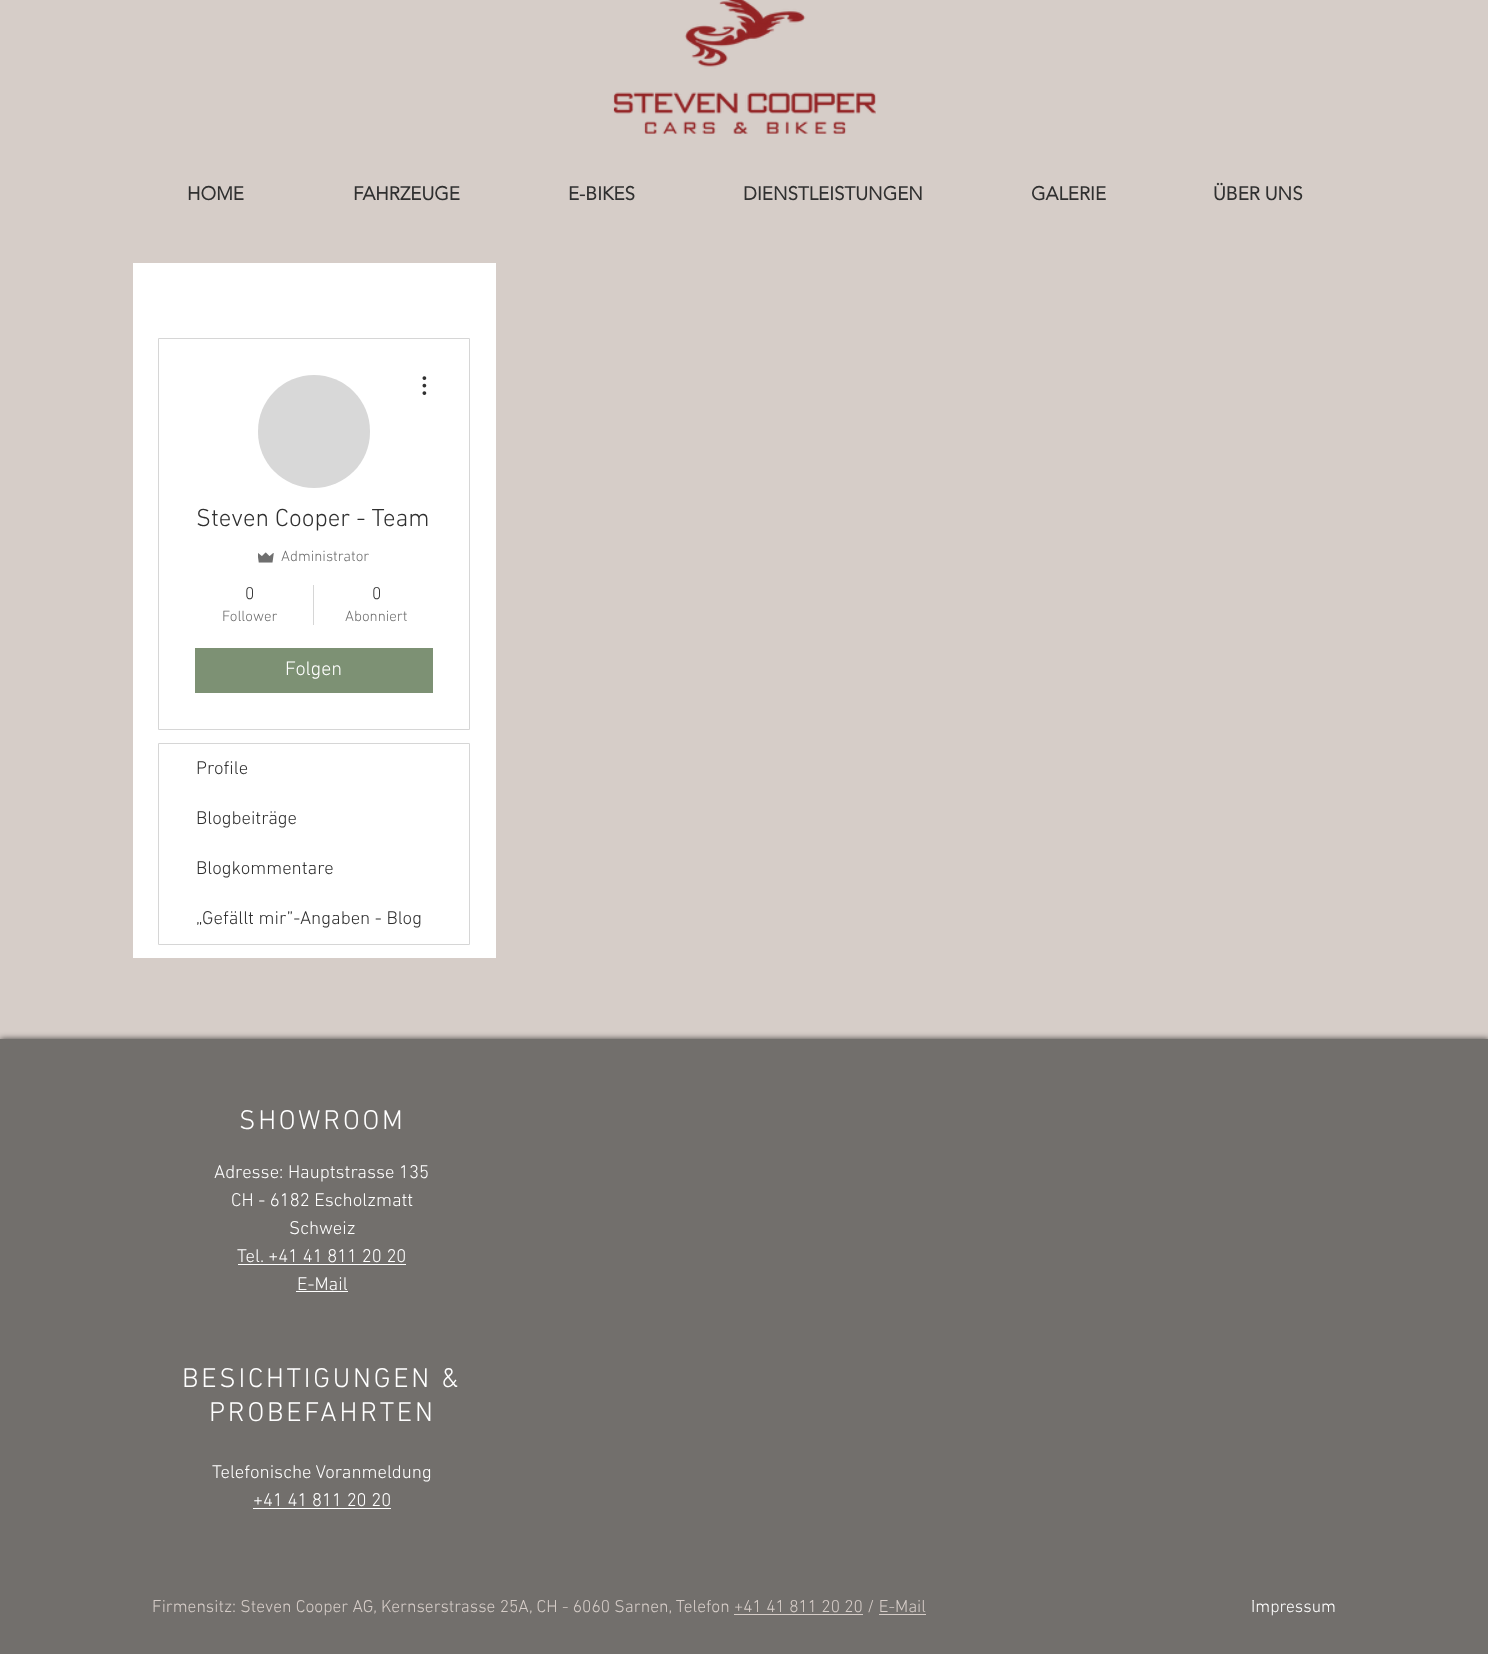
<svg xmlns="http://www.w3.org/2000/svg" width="1488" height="1654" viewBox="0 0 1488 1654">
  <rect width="100%" height="100%" fill="#d6cdc8"/>
  <image x="613" y="0" width="263" height="134" href="img/1.png"/>
  <path d="M133 263h363v695H133z" fill="#fff"/>
  <path d="M158.5 338.5h311v391H158.5z" fill="none" stroke="#d6d6d6"/>
  <rect x="258" y="375" width="112" height="113" rx="56" fill="#d8d8d8"/>
  <image x="422" y="376" width="5" height="19" href="img/2.png"/>
  <image x="258" y="552" width="16" height="11" href="img/3.png"/>
  <path d="M313 585h1v40H313z" fill="#d6d6d6"/>
  <path d="M195 648h238v45H195z" fill="#7d9174"/>
  <path d="M158.5 743.5h311v201H158.5z" fill="none" stroke="#d6d6d6"/>
  <path d="M0 1039h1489v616H0z" fill="#000000b3" filter="blur(3px)"/>
  <path d="M0 1039h1488v615H0z" fill="#726f6c"/>
  <path d="M238 1264h168v1H238z" fill="#fff"/>
  <path d="M296 1291h52v1H296z" fill="#fff"/>
  <path d="M253 1508h138v1H253z" fill="#fff"/>
  <path d="M734 1614h129v1H734z" fill="#d6cdc8"/>
  <path d="M879 1614h47v1H879z" fill="#d6cdc8"/>
  <g font-family="'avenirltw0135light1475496'" font-size="18.75" font-weight="bold" fill="#303030">
    <text x="187" y="200">HOME</text>
    <text x="353" y="200">FAHRZEUGE</text>
    <text x="568" y="200">E-BIKES</text>
    <text x="743" y="200">DIENSTLEISTUNGEN</text>
    <text x="1031" y="200">GALERIE</text>
    <text x="1213" y="200">ÜBER UNS</text>
  </g>
  <text x="196" y="526" font-family="'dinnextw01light'" font-size="25" font-weight="300" fill="#303030">Steven Cooper - Team</text>
  <text x="281" y="561" font-family="'dinnextw01light'" font-size="15" font-weight="300" fill="#6e6e6e">Administrator</text>
  <text x="245" y="599" font-family="'dinnextw01light'" font-size="17.5" font-weight="300" fill="#303030">0</text>
  <text x="222" y="621" font-family="'dinnextw01light'" font-size="15" font-weight="300" fill="#6e6e6e">Follower</text>
  <text x="372" y="599" font-family="'dinnextw01light'" font-size="17.5" font-weight="300" fill="#303030">0</text>
  <text x="345" y="621" font-family="'dinnextw01light'" font-size="15" font-weight="300" fill="#6e6e6e">Abonniert</text>
  <text x="285" y="675" font-family="'dinnextw01light'" font-size="20" font-weight="300" fill="#fff">Folgen</text>
  <g font-family="'dinnextw01light'" font-size="18.75" font-weight="300" fill="#303030">
    <text x="196" y="774">Profile</text>
    <text x="196" y="824">Blogbeiträge</text>
    <text x="196" y="874">Blogkommentare</text>
    <text x="196" y="924">„Gefällt mir”-Angaben - Blog</text>
  </g>
  <text x="239" y="1129" font-family="'dinnextw01light'" font-size="27.5" font-weight="300" letter-spacing="2.75" fill="#fff">SHOWROOM</text>
  <g font-family="'dinnextw01light'" font-size="18.75" font-weight="300" fill="#fff">
    <text x="214" y="1178">Adresse: Hauptstrasse 135</text>
    <text x="231" y="1206">CH - 6182 Escholzmatt</text>
    <text x="289" y="1234">Schweiz</text>
    <text x="237" y="1262">Tel. +41 41 811 20 20</text>
    <text x="297" y="1290">E-Mail</text>
  </g>
  <g font-family="'dinnextw01light'" font-size="27.5" font-weight="300" letter-spacing="2.75" fill="#fff">
    <text x="182" y="1387">BESICHTIGUNGEN &amp;</text>
    <text x="209" y="1421">PROBEFAHRTEN</text>
  </g>
  <g font-family="'dinnextw01light'" font-size="18.75" font-weight="300" fill="#fff">
    <text x="212" y="1478">Telefonische Voranmeldung</text>
    <text x="253" y="1506">+41 41 811 20 20</text>
  </g>
  <text x="152" y="1612" font-family="'dinnextw01light'" font-size="17.5" font-weight="300" fill="#d6cdc8">Firmensitz: Steven Cooper AG, Kernserstrasse 25A, CH - 6060 Sarnen, Telefon +41 41 811 20 20 / E-Mail</text>
  <text x="1251" y="1612" font-family="'dinnextw01light'" font-size="17.5" font-weight="300" fill="#fff">Impressum</text>
</svg>
